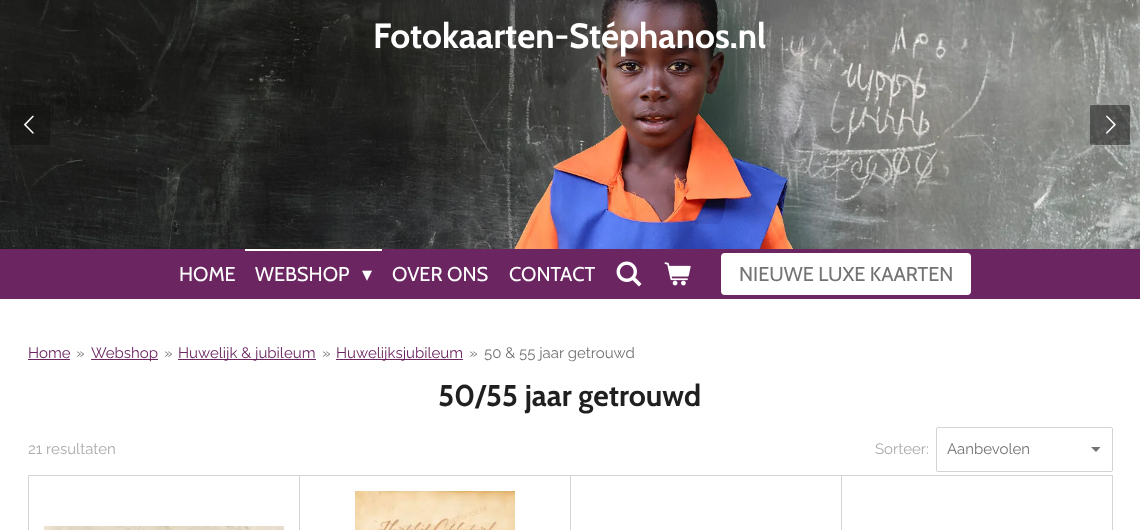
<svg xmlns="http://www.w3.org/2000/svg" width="1140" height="530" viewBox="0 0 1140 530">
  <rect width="100%" height="100%" fill="#fff"/>
  <image x="0" y="0" width="1140" height="249" href="img/1.png"/>
  <rect x="10" y="105" width="40" height="40" rx="2" fill="#0f0f0f80"/>
  <image x="24" y="115" width="10" height="19" href="img/2.png"/>
  <rect x="1090" y="105" width="40" height="40" rx="2" fill="#0f0f0f80"/>
  <image x="1106" y="115" width="10" height="19" href="img/3.png"/>
  <path d="M0 249h1140v50H0z" fill="#6b2561"/>
  <path d="M245 249h137v2H245z" fill="#fff"/>
  <image x="616" y="261" width="26" height="26" href="img/4.png"/>
  <image x="664" y="262" width="27" height="24" href="img/5.png"/>
  <rect x="721" y="253" width="250" height="42" rx="4" fill="#fff"/>
  <path d="M28 359h42v1H28z" fill="#6b2561"/>
  <path d="M91 359h67v1H91z" fill="#6b2561"/>
  <path d="M178 359h138v1H178z" fill="#6b2561"/>
  <path d="M336 359h127v1H336z" fill="#6b2561"/>
  <path d="M1096 452L1091 447H1100.5Z" fill="#737373"/>
  <rect x="936.5" y="427.5" width="176" height="44" rx="1.5" fill="none" stroke="#d3d3d3"/>
  <path d="M28.5 475.5h271v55H28.5z" fill="none" stroke="#d5d5d5"/>
  <image x="44" y="526" width="240" height="4" href="img/6.png"/>
  <path d="M299.5 475.5h271v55H299.5z" fill="none" stroke="#d5d5d5"/>
  <image x="355" y="491" width="160" height="39" href="img/7.png"/>
  <path d="M570.5 475.5h271v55H570.5z" fill="none" stroke="#d5d5d5"/>
  <path d="M841.5 475.5h271v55H841.5z" fill="none" stroke="#d5d5d5"/>
  <text x="373" y="48" font-family="Cabin" font-size="35" font-weight="bold" fill="#fff">Fotokaarten-Stéphanos.nl</text>
  <g font-family="Cabin" font-size="20" fill="#fff">
    <text x="179" y="281">HOME</text>
    <text x="255" y="281">WEBSHOP</text>
  </g>
  <text x="362" y="281" font-family="DejaVu Sans" font-size="20" fill="#fff">▾</text>
  <g font-family="Cabin" font-size="20" fill="#fff">
    <text x="392" y="281">OVER ONS</text>
    <text x="509" y="281">CONTACT</text>
  </g>
  <text x="739" y="281" font-family="Cabin" font-size="20" fill="#737373">NIEUWE LUXE KAARTEN</text>
  <text x="28" y="358" font-family="Raleway" font-size="15" fill="#6b2561">Home</text>
  <text x="76" y="358" font-family="Raleway" font-size="15" fill="#737373">»</text>
  <text x="91" y="358" font-family="Raleway" font-size="15" fill="#6b2561">Webshop</text>
  <text x="164" y="358" font-family="Raleway" font-size="15" fill="#737373">»</text>
  <text x="178" y="358" font-family="Raleway" font-size="15" fill="#6b2561">Huwelijk &amp; jubileum</text>
  <text x="322" y="358" font-family="Raleway" font-size="15" fill="#737373">»</text>
  <text x="336" y="358" font-family="Raleway" font-size="15" fill="#6b2561">Huwelijksjubileum</text>
  <g font-family="Raleway" font-size="15" fill="#737373">
    <text x="469" y="358">»</text>
    <text x="484" y="358">50 &amp; 55 jaar getrouwd</text>
  </g>
  <text x="438" y="406" font-family="Cabin" font-size="30" font-weight="bold" fill="#202020">50/55 jaar getrouwd</text>
  <g font-family="Raleway" font-size="15" fill="#ababab">
    <text x="28" y="454">21 resultaten</text>
    <text x="875" y="454">Sorteer:</text>
  </g>
  <text x="947" y="454" font-family="Raleway" font-size="15" fill="#737373">Aanbevolen</text>
</svg>
